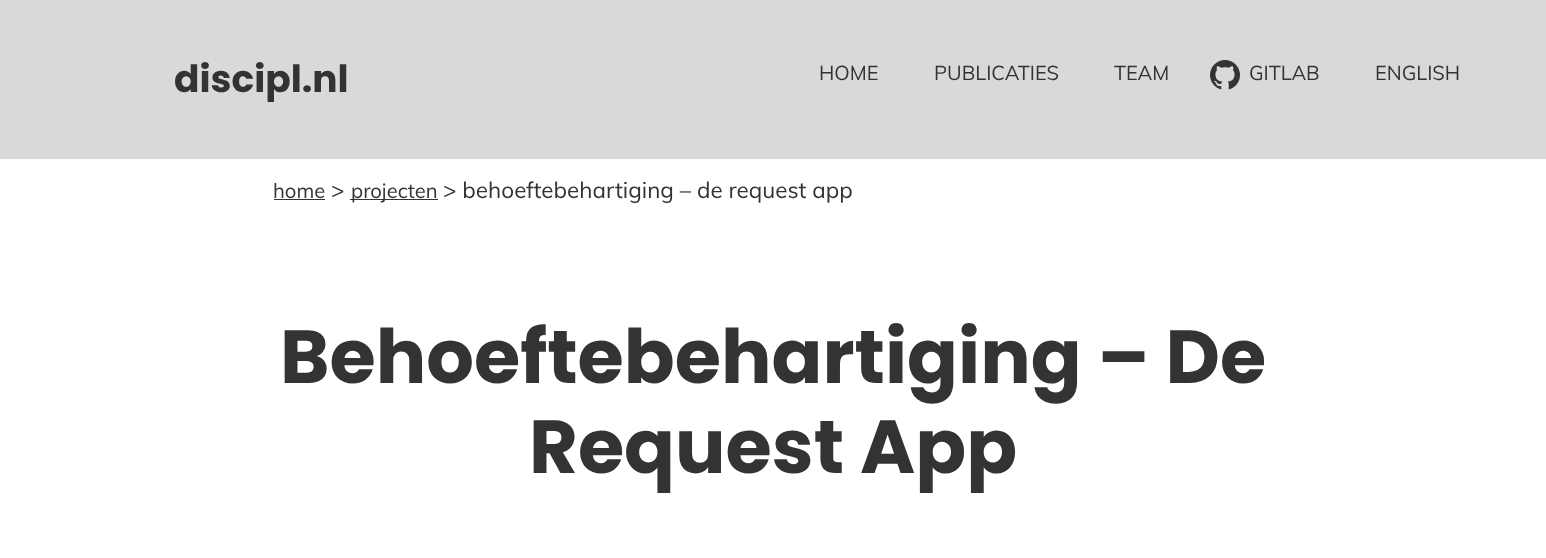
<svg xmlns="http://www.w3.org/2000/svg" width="1546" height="558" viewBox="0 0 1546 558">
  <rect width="100%" height="100%" fill="#fff"/>
  <path d="M0 0h1546v159H0z" fill="#d9d9d9"/>
  <image x="1210" y="60" width="30" height="30" href="img/1.png"/>
  <path d="M274 199h51v1H274z" fill="#333"/>
  <path d="M350 199h88v1H350z" fill="#333"/>
  <text x="174" y="92" font-family="Poppins" font-size="37.5" font-weight="bold" fill="#333">discipl.nl</text>
  <g font-family="Muli" font-size="20" fill="#333">
    <text x="819" y="80">HOME</text>
    <text x="934" y="80">PUBLICATIES</text>
    <text x="1114" y="80">TEAM</text>
    <text x="1249" y="80">GITLAB</text>
    <text x="1375" y="80">ENGLISH</text>
  </g>
  <text x="273" y="198" font-family="Muli" font-size="20.25" fill="#333">home</text>
  <text x="331" y="198" font-family="Muli" font-size="22.5" fill="#333">&gt;</text>
  <text x="351" y="198" font-family="Muli" font-size="20.25" fill="#333">projecten</text>
  <text x="443" y="198" font-family="Muli" font-size="22.5" fill="#333">&gt; behoeftebehartiging – de request app</text>
  <g font-family="Poppins" font-size="75" font-weight="bold" fill="#333">
    <text x="280" y="383">Behoeftebehartiging – De</text>
    <text x="529" y="473">Request App</text>
  </g>
</svg>
